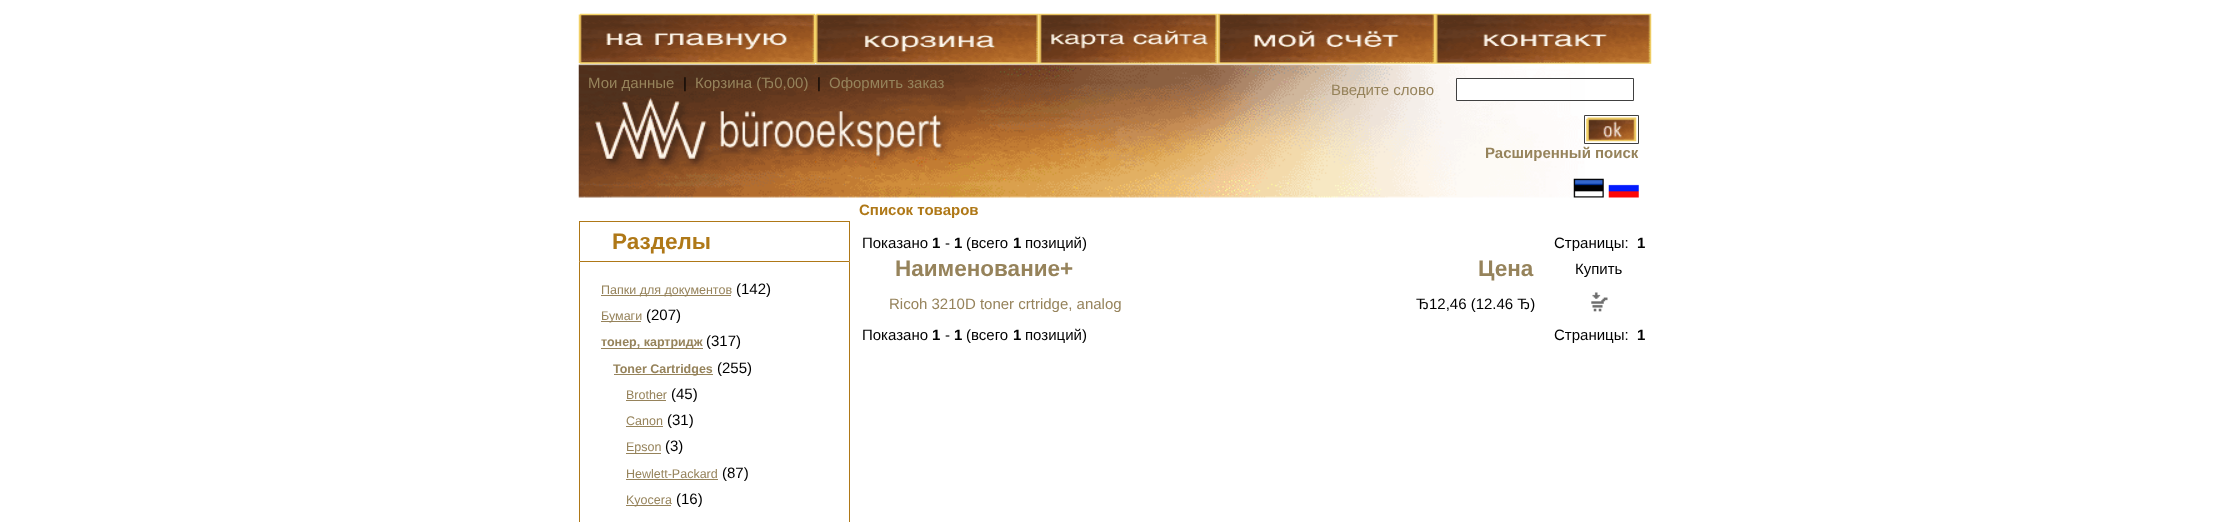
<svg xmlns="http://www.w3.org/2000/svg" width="2231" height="522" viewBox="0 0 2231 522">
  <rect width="100%" height="100%" fill="#fff"/>
  <image x="578" y="63" width="1007" height="135" href="img/1.png"/>
  <image x="578" y="13" width="237" height="51" href="img/2.png"/>
  <image x="815" y="13" width="224" height="51" href="img/3.png"/>
  <image x="1038" y="13" width="180" height="51" href="img/4.png"/>
  <image x="1217" y="13" width="218" height="51" href="img/5.png"/>
  <image x="1435" y="13" width="217" height="51" href="img/6.png"/>
  <path d="M1457 79h113v21H1457z" fill="#fff"/>
  <path d="M1456.5 78.5h177v22H1456.5z" fill="none" stroke="#404040"/>
  <path d="M1584.5 115.5h54v28H1584.5z" fill="none" stroke="#404040"/>
  <image x="1586" y="117" width="51" height="25" href="img/7.png"/>
  <image x="1573" y="178" width="31" height="20" href="img/8.png"/>
  <image x="1608" y="184" width="31" height="14" href="img/9.png"/>
  <path d="M579 221h271v1H579z" fill="#af7817"/>
  <path d="M579 221h1v40H579z" fill="#af7817"/>
  <path d="M849 221h1v40H849z" fill="#af7817"/>
  <path d="M579.5 261.5h270v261H579.5z" fill="none" stroke="#af7817"/>
  <path d="M601 295h130v1H601z" fill="#96835b"/>
  <path d="M601 321h40v1H601z" fill="#96835b"/>
  <path d="M601 348h102v1H601z" fill="#96835b"/>
  <path d="M614 374h99v1H614z" fill="#96835b"/>
  <path d="M626 400h40v1H626z" fill="#96835b"/>
  <path d="M626 426h37v1H626z" fill="#96835b"/>
  <path d="M626 453h35v1H626z" fill="#96835b"/>
  <path d="M626 479h92v1H626z" fill="#96835b"/>
  <path d="M626 505h45v1H626z" fill="#96835b"/>
  <image x="1591" y="292" width="17" height="20" href="img/10.png"/>
  <text x="588" y="88" font-family="Liberation Sans" font-size="15" fill="#96835b">Мои данные</text>
  <text x="683" y="88" font-family="Liberation Sans" font-size="15" fill="#000">|</text>
  <text x="695" y="88" font-family="Liberation Sans" font-size="15" fill="#96835b">Корзина (Ђ0,00)</text>
  <text x="817" y="88" font-family="Liberation Sans" font-size="15" fill="#000">|</text>
  <g font-family="Liberation Sans" font-size="15" fill="#96835b">
    <text x="829" y="88">Оформить заказ</text>
    <text x="1331" y="95">Введите слово</text>
  </g>
  <text x="1485" y="158" font-family="Liberation Sans" font-size="15" font-weight="bold" fill="#96835b">Расширенный поиск</text>
  <text x="612" y="249" font-family="Liberation Sans" font-size="22.5" font-weight="bold" fill="#af7817">Разделы</text>
  <text x="601" y="294" font-family="Liberation Sans" font-size="12.5" fill="#96835b">Папки для документов</text>
  <text x="736" y="294" font-family="Liberation Sans" font-size="15" fill="#000">(142)</text>
  <text x="601" y="320" font-family="Liberation Sans" font-size="12.5" fill="#96835b">Бумаги</text>
  <text x="646" y="320" font-family="Liberation Sans" font-size="15" fill="#000">(207)</text>
  <text x="601" y="346" font-family="Liberation Sans" font-size="12.5" font-weight="bold" fill="#96835b">тонер, картридж</text>
  <text x="706" y="346" font-family="Liberation Sans" font-size="15" fill="#000">(317)</text>
  <text x="613" y="373" font-family="Liberation Sans" font-size="12.5" font-weight="bold" fill="#96835b">Toner Cartridges</text>
  <text x="717" y="373" font-family="Liberation Sans" font-size="15" fill="#000">(255)</text>
  <text x="626" y="399" font-family="Liberation Sans" font-size="12.5" fill="#96835b">Brother</text>
  <text x="671" y="399" font-family="Liberation Sans" font-size="15" fill="#000">(45)</text>
  <text x="626" y="425" font-family="Liberation Sans" font-size="12.5" fill="#96835b">Canon</text>
  <text x="667" y="425" font-family="Liberation Sans" font-size="15" fill="#000">(31)</text>
  <text x="626" y="451" font-family="Liberation Sans" font-size="12.5" fill="#96835b">Epson</text>
  <text x="665" y="451" font-family="Liberation Sans" font-size="15" fill="#000">(3)</text>
  <text x="626" y="478" font-family="Liberation Sans" font-size="12.5" fill="#96835b">Hewlett-Packard</text>
  <text x="722" y="478" font-family="Liberation Sans" font-size="15" fill="#000">(87)</text>
  <text x="626" y="504" font-family="Liberation Sans" font-size="12.5" fill="#96835b">Kyocera</text>
  <text x="676" y="504" font-family="Liberation Sans" font-size="15" fill="#000">(16)</text>
  <text x="859" y="215" font-family="Liberation Sans" font-size="15" font-weight="bold" fill="#af7817">Список товаров</text>
  <text x="862" y="248" font-family="Liberation Sans" font-size="15" fill="#000">Показано</text>
  <text x="932" y="248" font-family="Liberation Sans" font-size="15" font-weight="bold" fill="#000">1</text>
  <text x="945" y="248" font-family="Liberation Sans" font-size="15" fill="#000">-</text>
  <text x="954" y="248" font-family="Liberation Sans" font-size="15" font-weight="bold" fill="#000">1</text>
  <text x="966" y="248" font-family="Liberation Sans" font-size="15" fill="#000">(всего</text>
  <text x="1013" y="248" font-family="Liberation Sans" font-size="15" font-weight="bold" fill="#000">1</text>
  <g font-family="Liberation Sans" font-size="15" fill="#000">
    <text x="1025" y="248">позиций)</text>
    <text x="1554" y="248">Страницы:</text>
  </g>
  <text x="1637" y="248" font-family="Liberation Sans" font-size="15" font-weight="bold" fill="#000">1</text>
  <g font-family="Liberation Sans" font-size="22.5" font-weight="bold" fill="#96835b">
    <text x="895" y="276">Наименование+</text>
    <text x="1478" y="276">Цена</text>
  </g>
  <text x="1575" y="274" font-family="Liberation Sans" font-size="15" fill="#000">Купить</text>
  <text x="889" y="309" font-family="Liberation Sans" font-size="15" fill="#96835b">Ricoh 3210D toner crtridge, analog</text>
  <g font-family="Liberation Sans" font-size="15" fill="#000">
    <text x="1416" y="309">Ђ12,46 (12.46 Ђ)</text>
    <text x="862" y="340">Показано</text>
  </g>
  <text x="932" y="340" font-family="Liberation Sans" font-size="15" font-weight="bold" fill="#000">1</text>
  <text x="945" y="340" font-family="Liberation Sans" font-size="15" fill="#000">-</text>
  <text x="954" y="340" font-family="Liberation Sans" font-size="15" font-weight="bold" fill="#000">1</text>
  <text x="966" y="340" font-family="Liberation Sans" font-size="15" fill="#000">(всего</text>
  <text x="1013" y="340" font-family="Liberation Sans" font-size="15" font-weight="bold" fill="#000">1</text>
  <g font-family="Liberation Sans" font-size="15" fill="#000">
    <text x="1025" y="340">позиций)</text>
    <text x="1554" y="340">Страницы:</text>
  </g>
  <text x="1637" y="340" font-family="Liberation Sans" font-size="15" font-weight="bold" fill="#000">1</text>
</svg>
